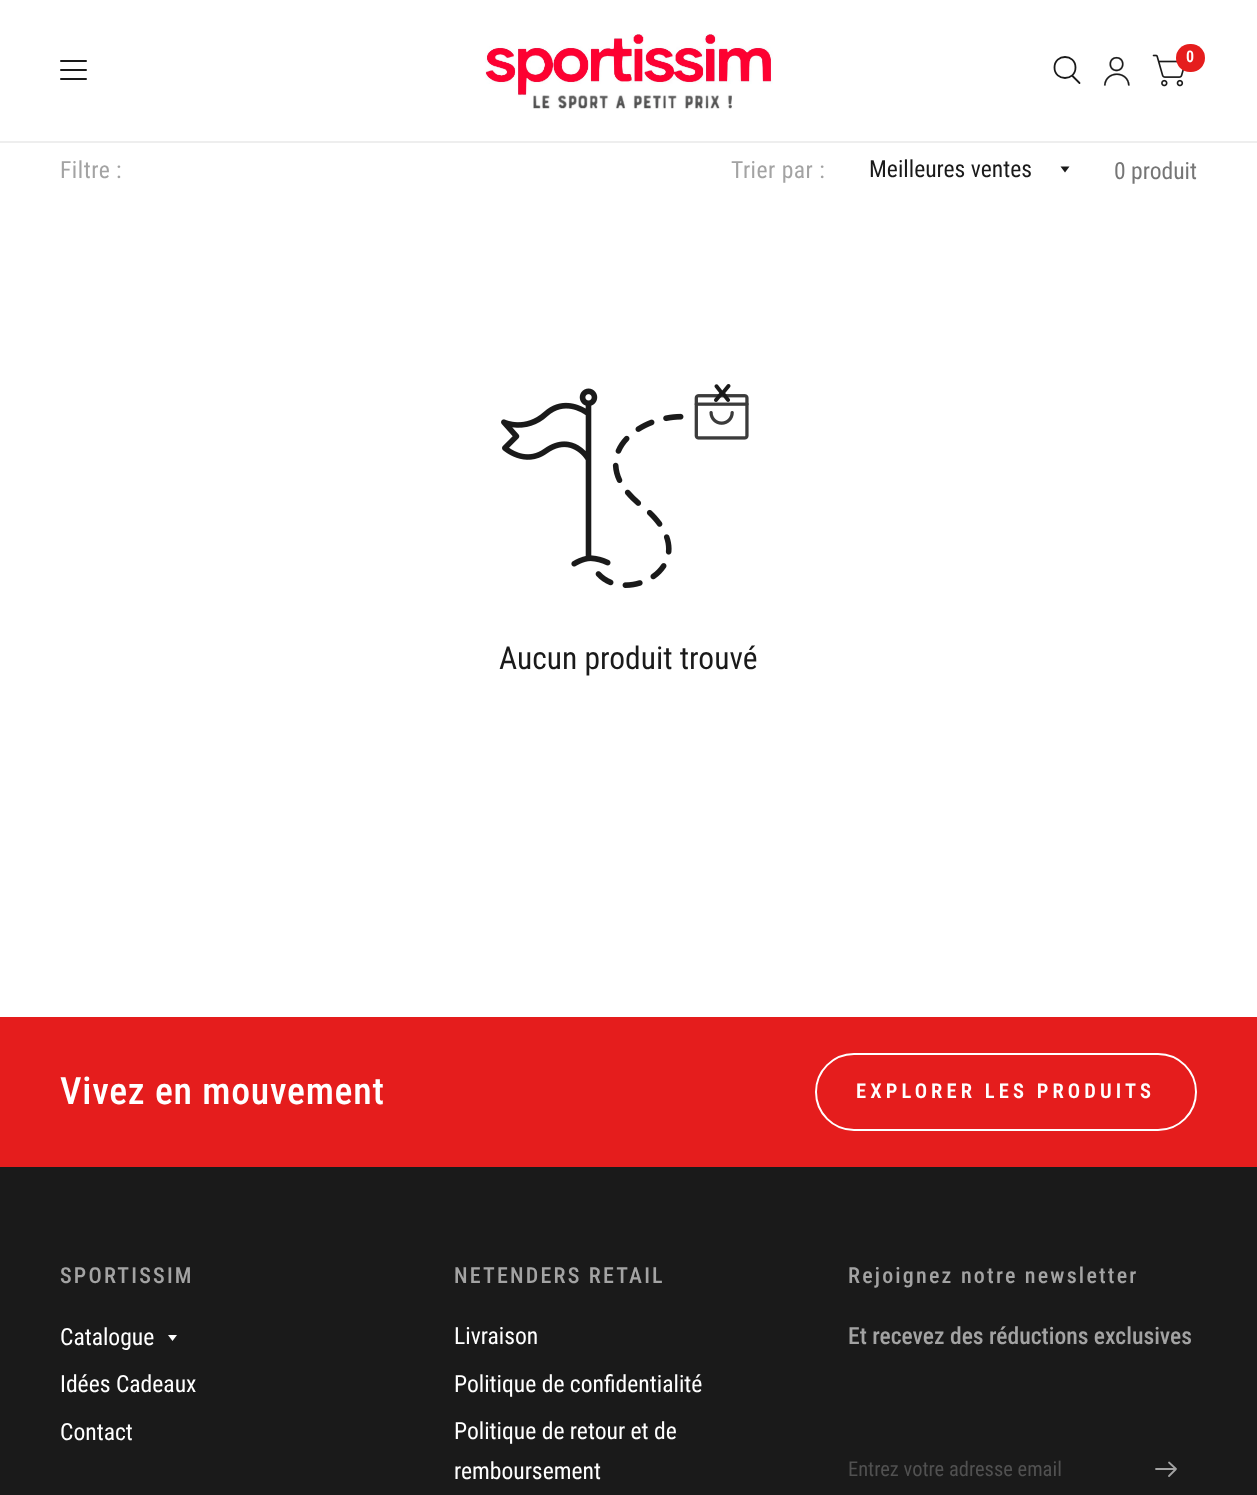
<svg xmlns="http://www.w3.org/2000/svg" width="1257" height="1495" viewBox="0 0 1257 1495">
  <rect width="100%" height="100%" fill="#fff"/>
  <path d="M0 141h1257v2H0z" fill="#eee"/>
  <image x="485" y="34" width="288" height="75" href="img/1.png"/>
  <path d="M1072.5 76L1079.5 83M1075.5 67.5C1075.5 81.5 1054.5 81.5 1054.5 67.5C1054.5 53.5 1075.5 53.5 1075.5 67.5Z" fill="none" stroke="#1a1a1a" stroke-width="1.8" stroke-linecap="round" stroke-linejoin="round"/>
  <image x="1103" y="56" width="27" height="30" href="img/2.png"/>
  <image x="1152" y="54" width="32" height="33" href="img/3.png"/>
  <rect x="1176" y="44" width="29" height="28" rx="14" fill="#e51d1d"/>
  <rect x="60" y="60" width="27" height="2" rx="1" fill="#1a1a1a"/>
  <rect x="60" y="69" width="27" height="2" rx="1" fill="#1a1a1a"/>
  <rect x="60" y="78" width="27" height="2" rx="1" fill="#1a1a1a"/>
  <path d="M1060.5 166.5H1069.5L1065 172.5Z" fill="#1a1a1a"/>
  <image x="501" y="384" width="248" height="204" href="img/4.png"/>
  <path d="M0 1017h1257v150H0z" fill="#e51d1d"/>
  <rect x="816" y="1054" width="380" height="76" rx="38" fill="none" stroke="#fff" stroke-width="2"/>
  <path d="M0 1167h1257v328H0z" fill="#1a1a1a"/>
  <path d="M168 1335H177L172.5 1341Z" fill="#fff"/>
  <path d="M1156 1469H1174M1169 1462.5L1176 1469L1169 1476" fill="none" stroke="#a3a3a3" stroke-width="1.8" stroke-linecap="round" stroke-linejoin="round"/>
  <text x="1186" y="62" font-family="Roboto Condensed" font-size="16" font-weight="600" fill="#fff">0</text>
  <g font-family="Roboto Condensed" font-size="23.6" letter-spacing="0.5" fill="#a3a3a3">
    <text x="60" y="178">Filtre :</text>
    <text x="731" y="178">Trier par :</text>
  </g>
  <text x="869" y="177" font-family="Roboto Condensed" font-size="23.6" fill="#1a1a1a">Meilleures ventes</text>
  <text x="1114" y="179" font-family="Roboto Condensed" font-size="23.6" fill="#767676">0 produit</text>
  <text x="499" y="669" font-family="Roboto Condensed" font-size="31.5" fill="#1a1a1a">Aucun produit trouvé</text>
  <text x="60" y="1104" font-family="Roboto Condensed" font-size="37.75" font-weight="500" letter-spacing="0.75" fill="#fff">Vivez en mouvement</text>
  <text x="856" y="1098" font-family="Roboto Condensed" font-size="20.5" font-weight="600" letter-spacing="4.1" fill="#fff">EXPLORER LES PRODUITS</text>
  <text x="60" y="1283" font-family="Roboto Condensed" font-size="22" font-weight="500" letter-spacing="2.2" fill="#a3a3a3">SPORTISSIM</text>
  <g font-family="Roboto Condensed" font-size="23.6" fill="#fff">
    <text x="60" y="1345">Catalogue</text>
    <text x="60" y="1392">Idées Cadeaux</text>
    <text x="60" y="1440">Contact</text>
  </g>
  <text x="454" y="1283" font-family="Roboto Condensed" font-size="22" font-weight="500" letter-spacing="2.2" fill="#a3a3a3">NETENDERS RETAIL</text>
  <g font-family="Roboto Condensed" font-size="23.6" fill="#fff">
    <text x="454" y="1344">Livraison</text>
    <text x="454" y="1392">Politique de confidentialité</text>
    <text x="454" y="1439">Politique de retour et de</text>
    <text x="454" y="1479">remboursement</text>
  </g>
  <text x="848" y="1283" font-family="Roboto Condensed" font-size="22" font-weight="500" letter-spacing="2.2" fill="#a3a3a3">Rejoignez notre newsletter</text>
  <text x="848" y="1344" font-family="Roboto Condensed" font-size="23.6" font-weight="500" fill="#a3a3a3">Et recevez des réductions exclusives</text>
  <text x="848" y="1476" font-family="Roboto Condensed" font-size="20.5" fill="#515151">Entrez votre adresse email</text>
</svg>
